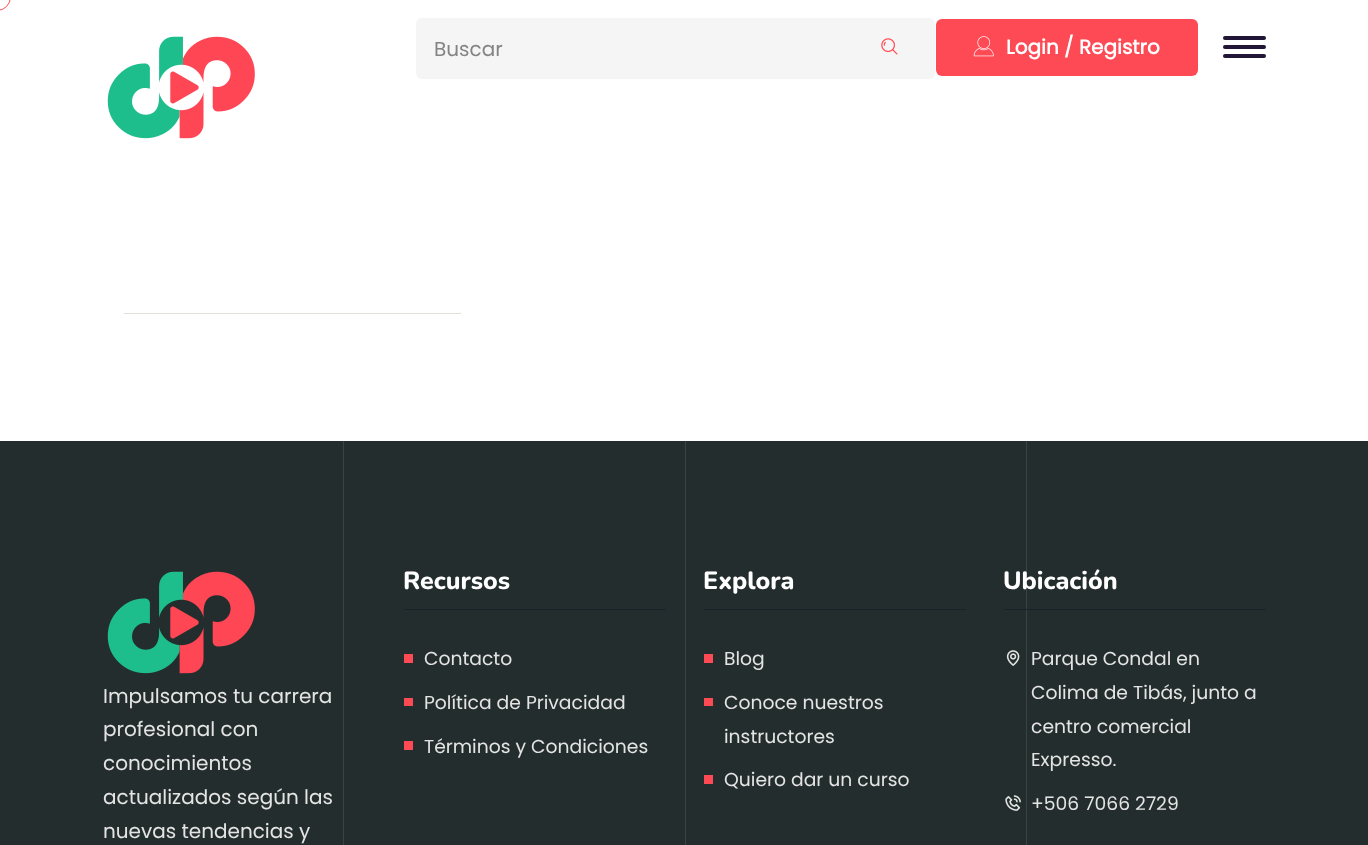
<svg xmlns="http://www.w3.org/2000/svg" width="1368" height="845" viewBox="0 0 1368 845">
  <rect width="100%" height="100%" fill="#fff"/>
  <rect x="-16.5" y="-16.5" width="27" height="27" rx="15" fill="none" stroke="#fe4a55"/>
  <image x="107" y="36" width="148" height="103" href="img/1.png"/>
  <rect x="416" y="18" width="519" height="61" rx="6" fill="#f5f5f5"/>
  <image x="881" y="38" width="17" height="17" href="img/2.png"/>
  <rect x="936" y="19" width="262" height="57" rx="6" fill="#fe4a55"/>
  <image x="973" y="36" width="21" height="21" href="img/3.png"/>
  <rect x="1223" y="36" width="43" height="4" rx="2" fill="#221638"/>
  <rect x="1223" y="45" width="43" height="4" rx="2" fill="#221638"/>
  <rect x="1223" y="54" width="43" height="4" rx="2" fill="#221638"/>
  <path d="M124 313h337v1H124z" fill="#e2e0db"/>
  <path d="M0 441h1368v404H0z" fill="#242d2d"/>
  <path d="M343 441h1v404H343z" fill="#3a4242"/>
  <path d="M685 441h1v404H685z" fill="#3a4242"/>
  <path d="M1026 441h1v404H1026z" fill="#3a4242"/>
  <image x="107" y="571" width="148" height="103" href="img/4.png"/>
  <path d="M404 609h262v1H404z" fill="#192129"/>
  <path d="M404 654h9v9H404z" fill="#fe4a55"/>
  <path d="M404 698h9v8H404z" fill="#fe4a55"/>
  <path d="M404 741h9v9H404z" fill="#fe4a55"/>
  <path d="M704 609h262v1H704z" fill="#192129"/>
  <path d="M704 654h9v9H704z" fill="#fe4a55"/>
  <path d="M704 698h9v8H704z" fill="#fe4a55"/>
  <path d="M704 775h9v9H704z" fill="#fe4a55"/>
  <path d="M1004 609h262v1H1004z" fill="#192129"/>
  <image x="1006" y="650" width="14" height="16" href="img/5.png"/>
  <image x="1005" y="795" width="16" height="16" href="img/6.png"/>
  <text x="434" y="56" font-family="Poppins" font-size="20" fill="#848484">Buscar</text>
  <text x="1006" y="54" font-family="Poppins" font-size="20" font-weight="bold" fill="#fff">Login / Registro</text>
  <g font-family="Poppins" font-size="20" fill="#e4e4e4">
    <text x="103" y="703">Impulsamos tu carrera</text>
    <text x="103" y="736">profesional con</text>
    <text x="103" y="770">conocimientos</text>
    <text x="103" y="804">actualizados según las</text>
    <text x="103" y="838">nuevas tendencias y</text>
  </g>
  <text x="403" y="589" font-family="Nunito" font-size="25" font-weight="800" fill="#fff">Recursos</text>
  <g font-family="Poppins" font-size="18.75" fill="#e4e4e4">
    <text x="424" y="665">Contacto</text>
    <text x="424" y="709">Política de Privacidad</text>
    <text x="424" y="753">Términos y Condiciones</text>
  </g>
  <text x="703" y="589" font-family="Nunito" font-size="25" font-weight="800" fill="#fff">Explora</text>
  <g font-family="Poppins" font-size="18.75" fill="#e4e4e4">
    <text x="724" y="665">Blog</text>
    <text x="724" y="709">Conoce nuestros</text>
    <text x="724" y="743">instructores</text>
    <text x="724" y="786">Quiero dar un curso</text>
  </g>
  <text x="1003" y="589" font-family="Nunito" font-size="25" font-weight="800" fill="#fff">Ubicación</text>
  <g font-family="Poppins" font-size="18.75" fill="#e4e4e4">
    <text x="1031" y="665">Parque Condal en</text>
    <text x="1031" y="699">Colima de Tibás, junto a</text>
    <text x="1031" y="733">centro comercial</text>
    <text x="1031" y="766">Expresso.</text>
    <text x="1031" y="810">+506 7066 2729</text>
  </g>
</svg>
